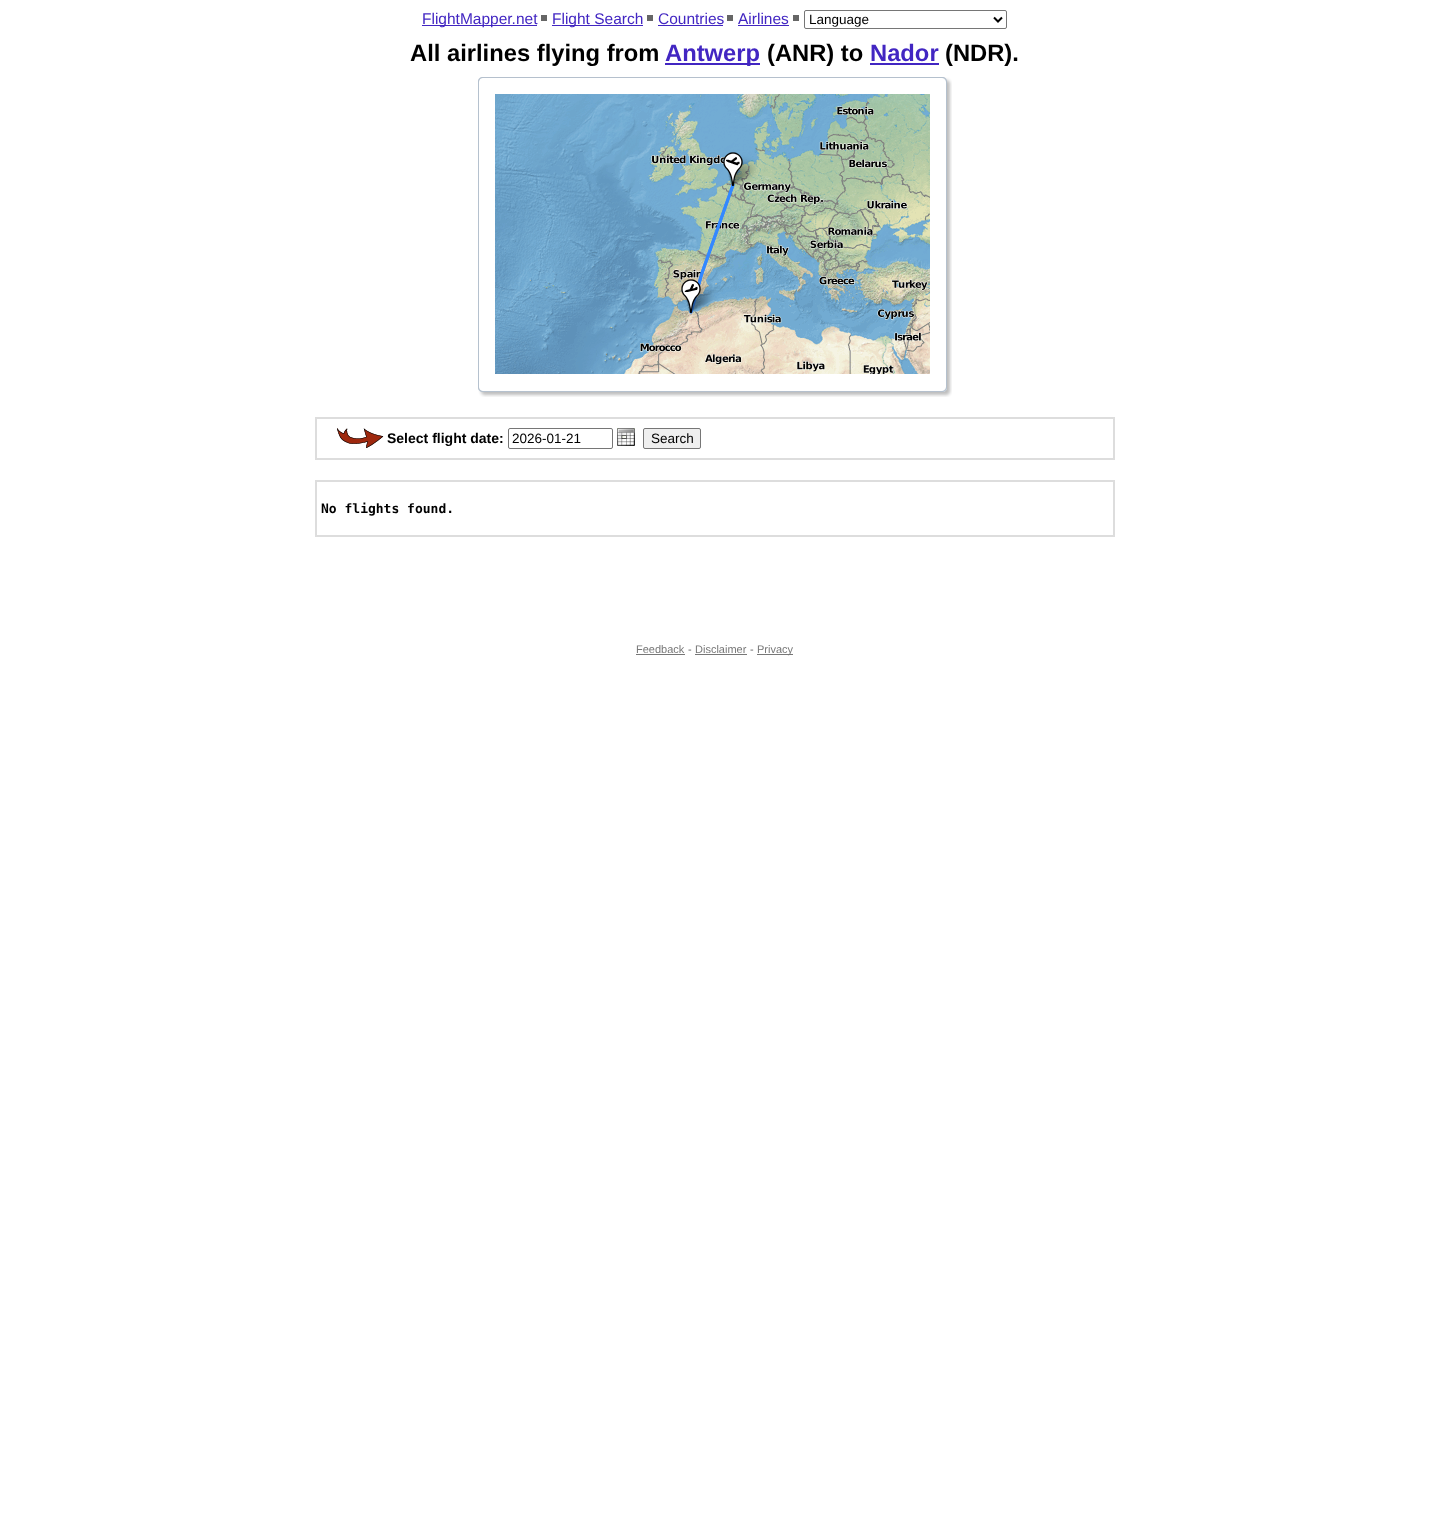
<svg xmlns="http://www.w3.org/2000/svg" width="1429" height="1539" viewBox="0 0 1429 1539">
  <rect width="100%" height="100%" fill="#fff"/>
  <path d="M422 25h115v1H422z" fill="#4226c2"/>
  <path d="M541 15h6v6H541z" fill="#666"/>
  <path d="M552 25h91v1H552z" fill="#4226c2"/>
  <path d="M647 15h6v6H647z" fill="#666"/>
  <path d="M658 25h65v1H658z" fill="#4226c2"/>
  <path d="M727 15h6v6H727z" fill="#666"/>
  <path d="M738 25h51v1H738z" fill="#4226c2"/>
  <path d="M793 15h6v6H793z" fill="#666"/>
  <rect x="804.5" y="10.5" width="202" height="18" rx="1.5" fill="none" stroke="#767676"/>
  <path d="M994 17.5L998 21.5L1002 17.5" fill="none" stroke="#000" stroke-width="2"/>
  <path d="M665 63h95v2H665z" fill="#4226c2"/>
  <path d="M870 63h69v2H870z" fill="#4226c2"/>
  <image x="478" y="77" width="474" height="320" href="img/1.png"/>
  <image x="495" y="94" width="435" height="280" href="img/2.png"/>
  <path d="M316 418h798v41H316z" fill="none" stroke="#ddd" stroke-width="2"/>
  <image x="337" y="428" width="47" height="20" href="img/3.png"/>
  <rect x="508.5" y="428.5" width="104" height="20" rx="1.5" fill="none" stroke="#767676"/>
  <image x="617" y="428" width="18" height="18" href="img/4.png"/>
  <rect x="643.5" y="428.5" width="57" height="20" rx="1.5" fill="#efefef" stroke="#767676"/>
  <path d="M316 481h798v55H316z" fill="none" stroke="#ddd" stroke-width="2"/>
  <path d="M636 654h49v1H636z" fill="#777"/>
  <path d="M695 654h52v1H695z" fill="#777"/>
  <path d="M757 654h36v1H757z" fill="#777"/>
  <g font-family="Liberation Sans" font-size="15.5" fill="#4226c2">
    <text x="422" y="24">FlightMapper.net</text>
    <text x="552" y="24">Flight Search</text>
    <text x="658" y="24">Countries</text>
    <text x="738" y="24">Airlines</text>
  </g>
  <text x="809" y="24" font-family="Liberation Sans" font-size="13.5" fill="#000">Language</text>
  <text x="410" y="61" font-family="Liberation Sans" font-size="23.75" font-weight="bold" fill="#000">All airlines flying from</text>
  <text x="665" y="61" font-family="Liberation Sans" font-size="23.75" font-weight="bold" fill="#4226c2">Antwerp</text>
  <text x="767" y="61" font-family="Liberation Sans" font-size="23.75" font-weight="bold" fill="#000">(ANR) to</text>
  <text x="870" y="61" font-family="Liberation Sans" font-size="23.75" font-weight="bold" fill="#4226c2">Nador</text>
  <text x="945" y="61" font-family="Liberation Sans" font-size="23.75" font-weight="bold" fill="#000">(NDR).</text>
  <text x="387" y="443" font-family="Liberation Sans" font-size="14" font-weight="bold" fill="#000">Select flight date:</text>
  <g font-family="Liberation Sans" font-size="13.5" fill="#000">
    <text x="512" y="443">2026-01-21</text>
    <text x="651" y="443">Search</text>
  </g>
  <text x="321" y="513" font-family="DejaVu Sans Mono" font-size="13" font-weight="bold" fill="#000">No flights found.</text>
  <text x="636" y="653" font-family="Liberation Sans" font-size="11" fill="#777">Feedback</text>
  <text x="688" y="653" font-family="Liberation Sans" font-size="11" fill="#656565">-</text>
  <text x="695" y="653" font-family="Liberation Sans" font-size="11" fill="#777">Disclaimer</text>
  <text x="750" y="653" font-family="Liberation Sans" font-size="11" fill="#656565">-</text>
  <text x="757" y="653" font-family="Liberation Sans" font-size="11" fill="#777">Privacy</text>
</svg>
